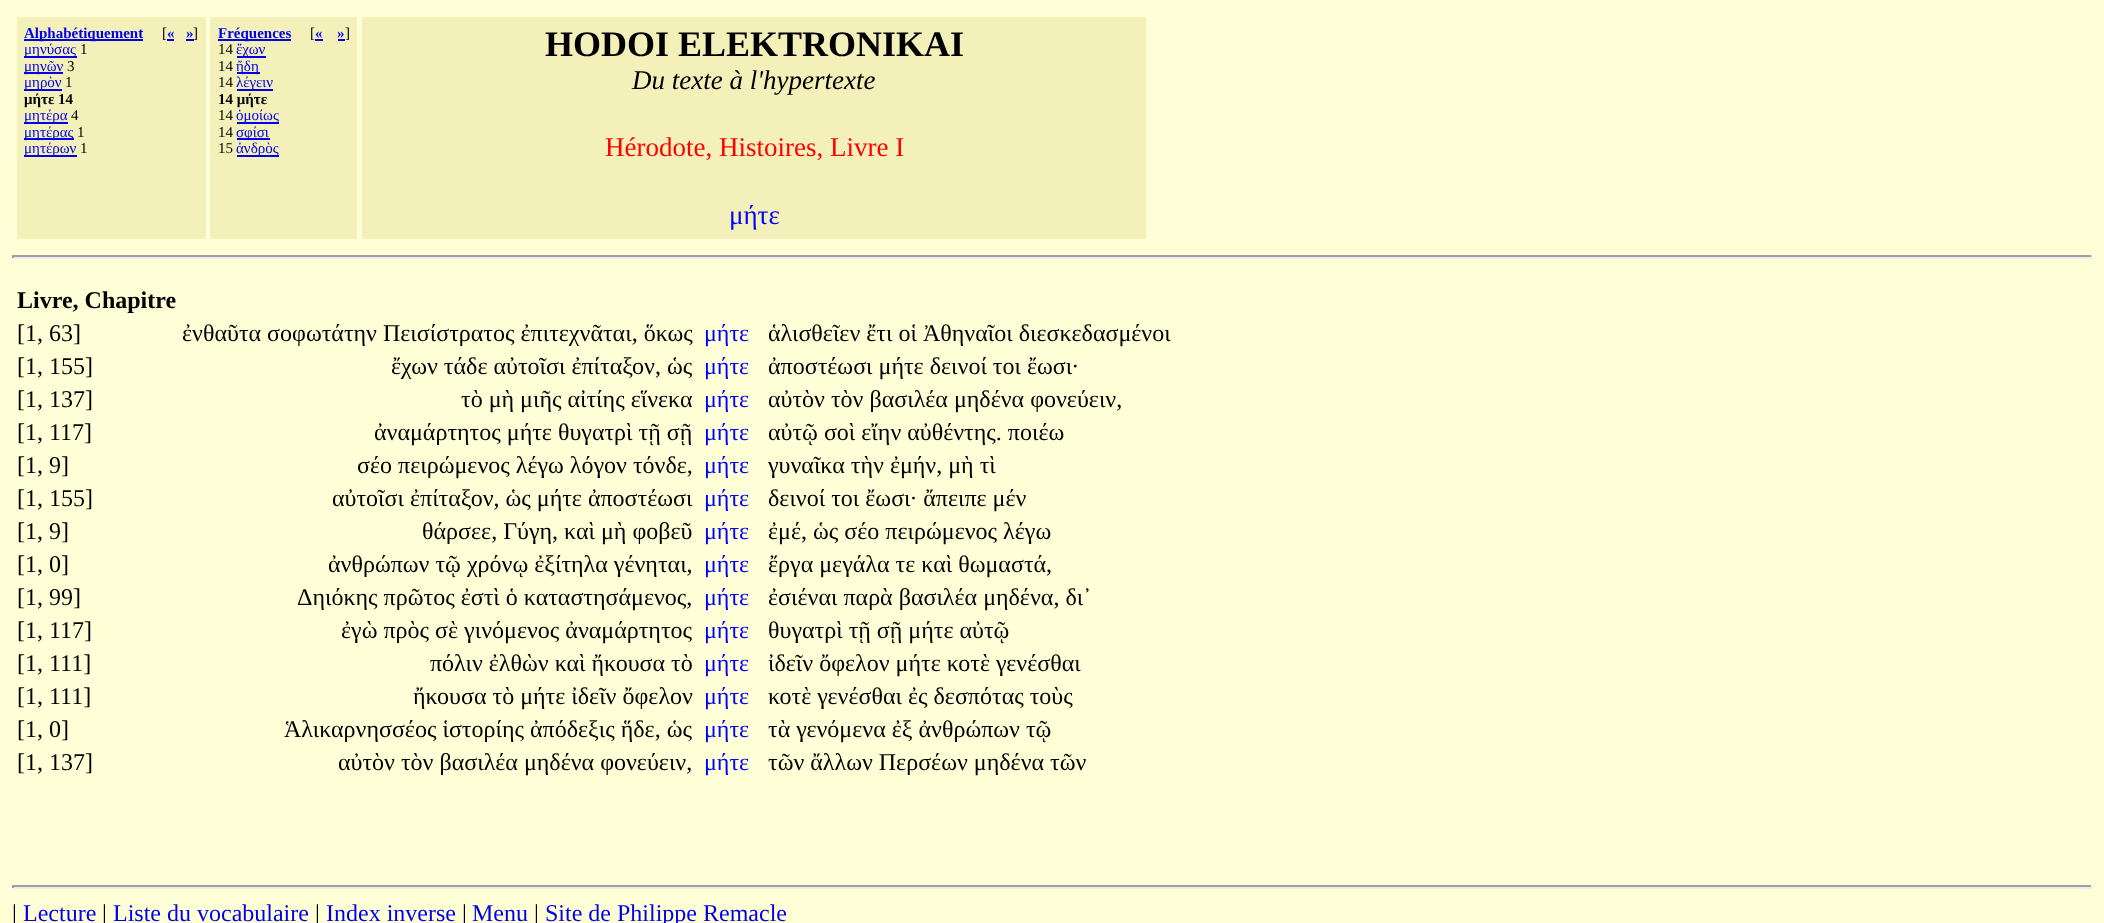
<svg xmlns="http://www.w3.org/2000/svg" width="2104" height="923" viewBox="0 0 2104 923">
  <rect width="100%" height="100%" fill="#ffffd7"/>
  <path d="M17 17h189v222H17z" fill="#f3f0b9"/>
  <path d="M24 39h119v2H24z" fill="#00e"/>
  <path d="M167 39h7v2H167z" fill="#00e"/>
  <path d="M186 39h8v2H186z" fill="#00e"/>
  <path d="M24 56h53v2H24z" fill="#00e"/>
  <path d="M24 72h39v2H24z" fill="#00e"/>
  <path d="M24 89h38v2H24z" fill="#00e"/>
  <path d="M24 122h44v2H24z" fill="#00e"/>
  <path d="M24 138h50v2H24z" fill="#00e"/>
  <path d="M24 155h53v2H24z" fill="#00e"/>
  <path d="M210 17h147v222H210z" fill="#f3f0b9"/>
  <path d="M218 39h73v2H218z" fill="#00e"/>
  <path d="M315 39h8v2H315z" fill="#00e"/>
  <path d="M338 39h7v2H338z" fill="#00e"/>
  <path d="M237 56h29v2H237z" fill="#00e"/>
  <path d="M237 72h23v2H237z" fill="#00e"/>
  <path d="M237 89h36v2H237z" fill="#00e"/>
  <path d="M237 122h42v2H237z" fill="#00e"/>
  <path d="M237 138h33v2H237z" fill="#00e"/>
  <path d="M237 155h42v2H237z" fill="#00e"/>
  <path d="M362 17h784v222H362z" fill="#f3f0b9"/>
  <path d="M12 255h2081v2H12z" fill="#9f9f9f"/>
  <path d="M2091 255h2v3H2091z" fill="#eee"/>
  <path d="M12 257h2081v2H12z" fill="#eee"/>
  <path d="M12 255h2v3H12z" fill="#9f9f9f"/>
  <path d="M12 885h2081v2H12z" fill="#9f9f9f"/>
  <path d="M2091 885h2v3H2091z" fill="#eee"/>
  <path d="M12 887h2081v2H12z" fill="#eee"/>
  <path d="M12 885h2v3H12z" fill="#9f9f9f"/>
  <text x="24" y="38" font-family="Liberation Serif" font-size="15" font-weight="bold" fill="#00e">Alphabétiquement</text>
  <text x="162" y="38" font-family="Liberation Serif" font-size="15" fill="#000">[</text>
  <g font-family="Liberation Serif" font-size="15" font-weight="bold" fill="#00e">
    <text x="167" y="38">«</text>
    <text x="186" y="38">»</text>
  </g>
  <text x="193" y="38" font-family="Liberation Serif" font-size="15" fill="#000">]</text>
  <text x="24" y="54" font-family="Liberation Serif" font-size="15" fill="#00e">μηνύσας</text>
  <text x="80" y="54" font-family="Liberation Serif" font-size="15" fill="#000">1</text>
  <text x="24" y="71" font-family="Liberation Serif" font-size="15" fill="#00e">μηνῶν</text>
  <text x="67" y="71" font-family="Liberation Serif" font-size="15" fill="#000">3</text>
  <text x="24" y="87" font-family="Liberation Serif" font-size="15" fill="#00e">μηρὸν</text>
  <text x="65" y="87" font-family="Liberation Serif" font-size="15" fill="#000">1</text>
  <text x="24" y="104" font-family="Liberation Serif" font-size="15" font-weight="bold" fill="#000">μήτε 14</text>
  <text x="24" y="120" font-family="Liberation Serif" font-size="15" fill="#00e">μητέρα</text>
  <text x="71" y="120" font-family="Liberation Serif" font-size="15" fill="#000">4</text>
  <text x="24" y="137" font-family="Liberation Serif" font-size="15" fill="#00e">μητέρας</text>
  <text x="77" y="137" font-family="Liberation Serif" font-size="15" fill="#000">1</text>
  <text x="24" y="153" font-family="Liberation Serif" font-size="15" fill="#00e">μητέρων</text>
  <text x="80" y="153" font-family="Liberation Serif" font-size="15" fill="#000">1</text>
  <text x="218" y="38" font-family="Liberation Serif" font-size="15" font-weight="bold" fill="#00e">Fréquences</text>
  <text x="310" y="38" font-family="Liberation Serif" font-size="15" fill="#000">[</text>
  <g font-family="Liberation Serif" font-size="15" font-weight="bold" fill="#00e">
    <text x="315" y="38">«</text>
    <text x="337" y="38">»</text>
  </g>
  <g font-family="Liberation Serif" font-size="15" fill="#000">
    <text x="345" y="38">]</text>
    <text x="218" y="54">14</text>
  </g>
  <text x="236" y="54" font-family="Liberation Serif" font-size="15" fill="#00e">ἔχων</text>
  <text x="218" y="71" font-family="Liberation Serif" font-size="15" fill="#000">14</text>
  <text x="236" y="71" font-family="Liberation Serif" font-size="15" fill="#00e">ἤδη</text>
  <text x="218" y="87" font-family="Liberation Serif" font-size="15" fill="#000">14</text>
  <text x="236" y="87" font-family="Liberation Serif" font-size="15" fill="#00e">λέγειν</text>
  <text x="218" y="104" font-family="Liberation Serif" font-size="15" font-weight="bold" fill="#000">14 μήτε</text>
  <text x="218" y="120" font-family="Liberation Serif" font-size="15" fill="#000">14</text>
  <text x="236" y="120" font-family="Liberation Serif" font-size="15" fill="#00e">ὁμοίως</text>
  <text x="218" y="137" font-family="Liberation Serif" font-size="15" fill="#000">14</text>
  <text x="236" y="137" font-family="Liberation Serif" font-size="15" fill="#00e">σφίσι</text>
  <text x="218" y="153" font-family="Liberation Serif" font-size="15" fill="#000">15</text>
  <text x="236" y="153" font-family="Liberation Serif" font-size="15" fill="#00e">ἀνδρὸς</text>
  <text x="545" y="56" font-family="Liberation Serif" font-size="36" font-weight="bold" fill="#000">HODOI ELEKTRONIKAI</text>
  <text x="632" y="89" font-family="Liberation Serif" font-size="27" font-style="italic" fill="#000">Du texte à l'hypertexte</text>
  <text x="605" y="156" font-family="Liberation Serif" font-size="27" fill="#f00">Hérodote, Histoires, Livre I</text>
  <text x="729" y="224" font-family="Liberation Serif" font-size="27" fill="#00f">μήτε</text>
  <text x="17" y="308" font-family="Liberation Serif" font-size="24" font-weight="bold" fill="#000">Livre, Chapitre</text>
  <g font-family="Liberation Serif" font-size="24" fill="#000">
    <text x="17" y="341">[1, 63]</text>
    <text x="182" y="341">ἐνθαῦτα σοφωτάτην Πεισίστρατος ἐπιτεχνᾶται, ὅκως</text>
  </g>
  <text x="704" y="341" font-family="Liberation Serif" font-size="24" fill="#00f">μήτε</text>
  <g font-family="Liberation Serif" font-size="24" fill="#000">
    <text x="768" y="341">ἁλισθεῖεν ἔτι οἱ Ἀθηναῖοι διεσκεδασμένοι</text>
    <text x="17" y="374">[1, 155]</text>
    <text x="391" y="374">ἔχων τάδε αὐτοῖσι ἐπίταξον, ὡς</text>
  </g>
  <text x="704" y="374" font-family="Liberation Serif" font-size="24" fill="#00f">μήτε</text>
  <g font-family="Liberation Serif" font-size="24" fill="#000">
    <text x="768" y="374">ἀποστέωσι μήτε δεινοί τοι ἔωσι·</text>
    <text x="17" y="407">[1, 137]</text>
    <text x="461" y="407">τὸ μὴ μιῆς αἰτίης εἵνεκα</text>
  </g>
  <text x="704" y="407" font-family="Liberation Serif" font-size="24" fill="#00f">μήτε</text>
  <g font-family="Liberation Serif" font-size="24" fill="#000">
    <text x="768" y="407">αὐτὸν τὸν βασιλέα μηδένα φονεύειν,</text>
    <text x="17" y="440">[1, 117]</text>
    <text x="374" y="440">ἀναμάρτητος μήτε θυγατρὶ τῇ σῇ</text>
  </g>
  <text x="704" y="440" font-family="Liberation Serif" font-size="24" fill="#00f">μήτε</text>
  <g font-family="Liberation Serif" font-size="24" fill="#000">
    <text x="768" y="440">αὐτῷ σοὶ εἴην αὐθέντης. ποιέω</text>
    <text x="17" y="473">[1, 9]</text>
    <text x="357" y="473">σέο πειρώμενος λέγω λόγον τόνδε,</text>
  </g>
  <text x="704" y="473" font-family="Liberation Serif" font-size="24" fill="#00f">μήτε</text>
  <g font-family="Liberation Serif" font-size="24" fill="#000">
    <text x="768" y="473">γυναῖκα τὴν ἐμήν, μὴ τὶ</text>
    <text x="17" y="506">[1, 155]</text>
    <text x="332" y="506">αὐτοῖσι ἐπίταξον, ὡς μήτε ἀποστέωσι</text>
  </g>
  <text x="704" y="506" font-family="Liberation Serif" font-size="24" fill="#00f">μήτε</text>
  <g font-family="Liberation Serif" font-size="24" fill="#000">
    <text x="768" y="506">δεινοί τοι ἔωσι· ἄπειπε μέν</text>
    <text x="17" y="539">[1, 9]</text>
    <text x="422" y="539">θάρσεε, Γύγη, καὶ μὴ φοβεῦ</text>
  </g>
  <text x="704" y="539" font-family="Liberation Serif" font-size="24" fill="#00f">μήτε</text>
  <g font-family="Liberation Serif" font-size="24" fill="#000">
    <text x="768" y="539">ἐμέ, ὡς σέο πειρώμενος λέγω</text>
    <text x="17" y="572">[1, 0]</text>
    <text x="328" y="572">ἀνθρώπων τῷ χρόνῳ ἐξίτηλα γένηται,</text>
  </g>
  <text x="704" y="572" font-family="Liberation Serif" font-size="24" fill="#00f">μήτε</text>
  <g font-family="Liberation Serif" font-size="24" fill="#000">
    <text x="768" y="572">ἔργα μεγάλα τε καὶ θωμαστά,</text>
    <text x="17" y="605">[1, 99]</text>
    <text x="297" y="605">Δηιόκης πρῶτος ἐστὶ ὁ καταστησάμενος,</text>
  </g>
  <text x="704" y="605" font-family="Liberation Serif" font-size="24" fill="#00f">μήτε</text>
  <g font-family="Liberation Serif" font-size="24" fill="#000">
    <text x="768" y="605">ἐσιέναι παρὰ βασιλέα μηδένα, δι᾽</text>
    <text x="17" y="638">[1, 117]</text>
    <text x="341" y="638">ἐγὼ πρὸς σὲ γινόμενος ἀναμάρτητος</text>
  </g>
  <text x="704" y="638" font-family="Liberation Serif" font-size="24" fill="#00f">μήτε</text>
  <g font-family="Liberation Serif" font-size="24" fill="#000">
    <text x="768" y="638">θυγατρὶ τῇ σῇ μήτε αὐτῷ</text>
    <text x="17" y="671">[1, 111]</text>
    <text x="430" y="671">πόλιν ἐλθὼν καὶ ἤκουσα τὸ</text>
  </g>
  <text x="704" y="671" font-family="Liberation Serif" font-size="24" fill="#00f">μήτε</text>
  <g font-family="Liberation Serif" font-size="24" fill="#000">
    <text x="768" y="671">ἰδεῖν ὄφελον μήτε κοτὲ γενέσθαι</text>
    <text x="17" y="704">[1, 111]</text>
    <text x="413" y="704">ἤκουσα τὸ μήτε ἰδεῖν ὄφελον</text>
  </g>
  <text x="704" y="704" font-family="Liberation Serif" font-size="24" fill="#00f">μήτε</text>
  <g font-family="Liberation Serif" font-size="24" fill="#000">
    <text x="768" y="704">κοτὲ γενέσθαι ἐς δεσπότας τοὺς</text>
    <text x="17" y="737">[1, 0]</text>
    <text x="284" y="737">Ἁλικαρνησσέος ἱστορίης ἀπόδεξις ἥδε, ὡς</text>
  </g>
  <text x="704" y="737" font-family="Liberation Serif" font-size="24" fill="#00f">μήτε</text>
  <g font-family="Liberation Serif" font-size="24" fill="#000">
    <text x="768" y="737">τὰ γενόμενα ἐξ ἀνθρώπων τῷ</text>
    <text x="17" y="770">[1, 137]</text>
    <text x="338" y="770">αὐτὸν τὸν βασιλέα μηδένα φονεύειν,</text>
  </g>
  <text x="704" y="770" font-family="Liberation Serif" font-size="24" fill="#00f">μήτε</text>
  <g font-family="Liberation Serif" font-size="24" fill="#000">
    <text x="768" y="770">τῶν ἄλλων Περσέων μηδένα τῶν</text>
    <text x="12" y="921">|</text>
  </g>
  <text x="23" y="921" font-family="Liberation Serif" font-size="24" fill="#00e">Lecture</text>
  <text x="102" y="921" font-family="Liberation Serif" font-size="24" fill="#000">|</text>
  <text x="113" y="921" font-family="Liberation Serif" font-size="24" fill="#00e">Liste du vocabulaire</text>
  <text x="315" y="921" font-family="Liberation Serif" font-size="24" fill="#000">|</text>
  <text x="326" y="921" font-family="Liberation Serif" font-size="24" fill="#00e">Index inverse</text>
  <text x="462" y="921" font-family="Liberation Serif" font-size="24" fill="#000">|</text>
  <text x="472" y="921" font-family="Liberation Serif" font-size="24" fill="#00e">Menu</text>
  <text x="534" y="921" font-family="Liberation Serif" font-size="24" fill="#000">|</text>
  <text x="545" y="921" font-family="Liberation Serif" font-size="24" fill="#00e">Site de Philippe Remacle</text>
</svg>
